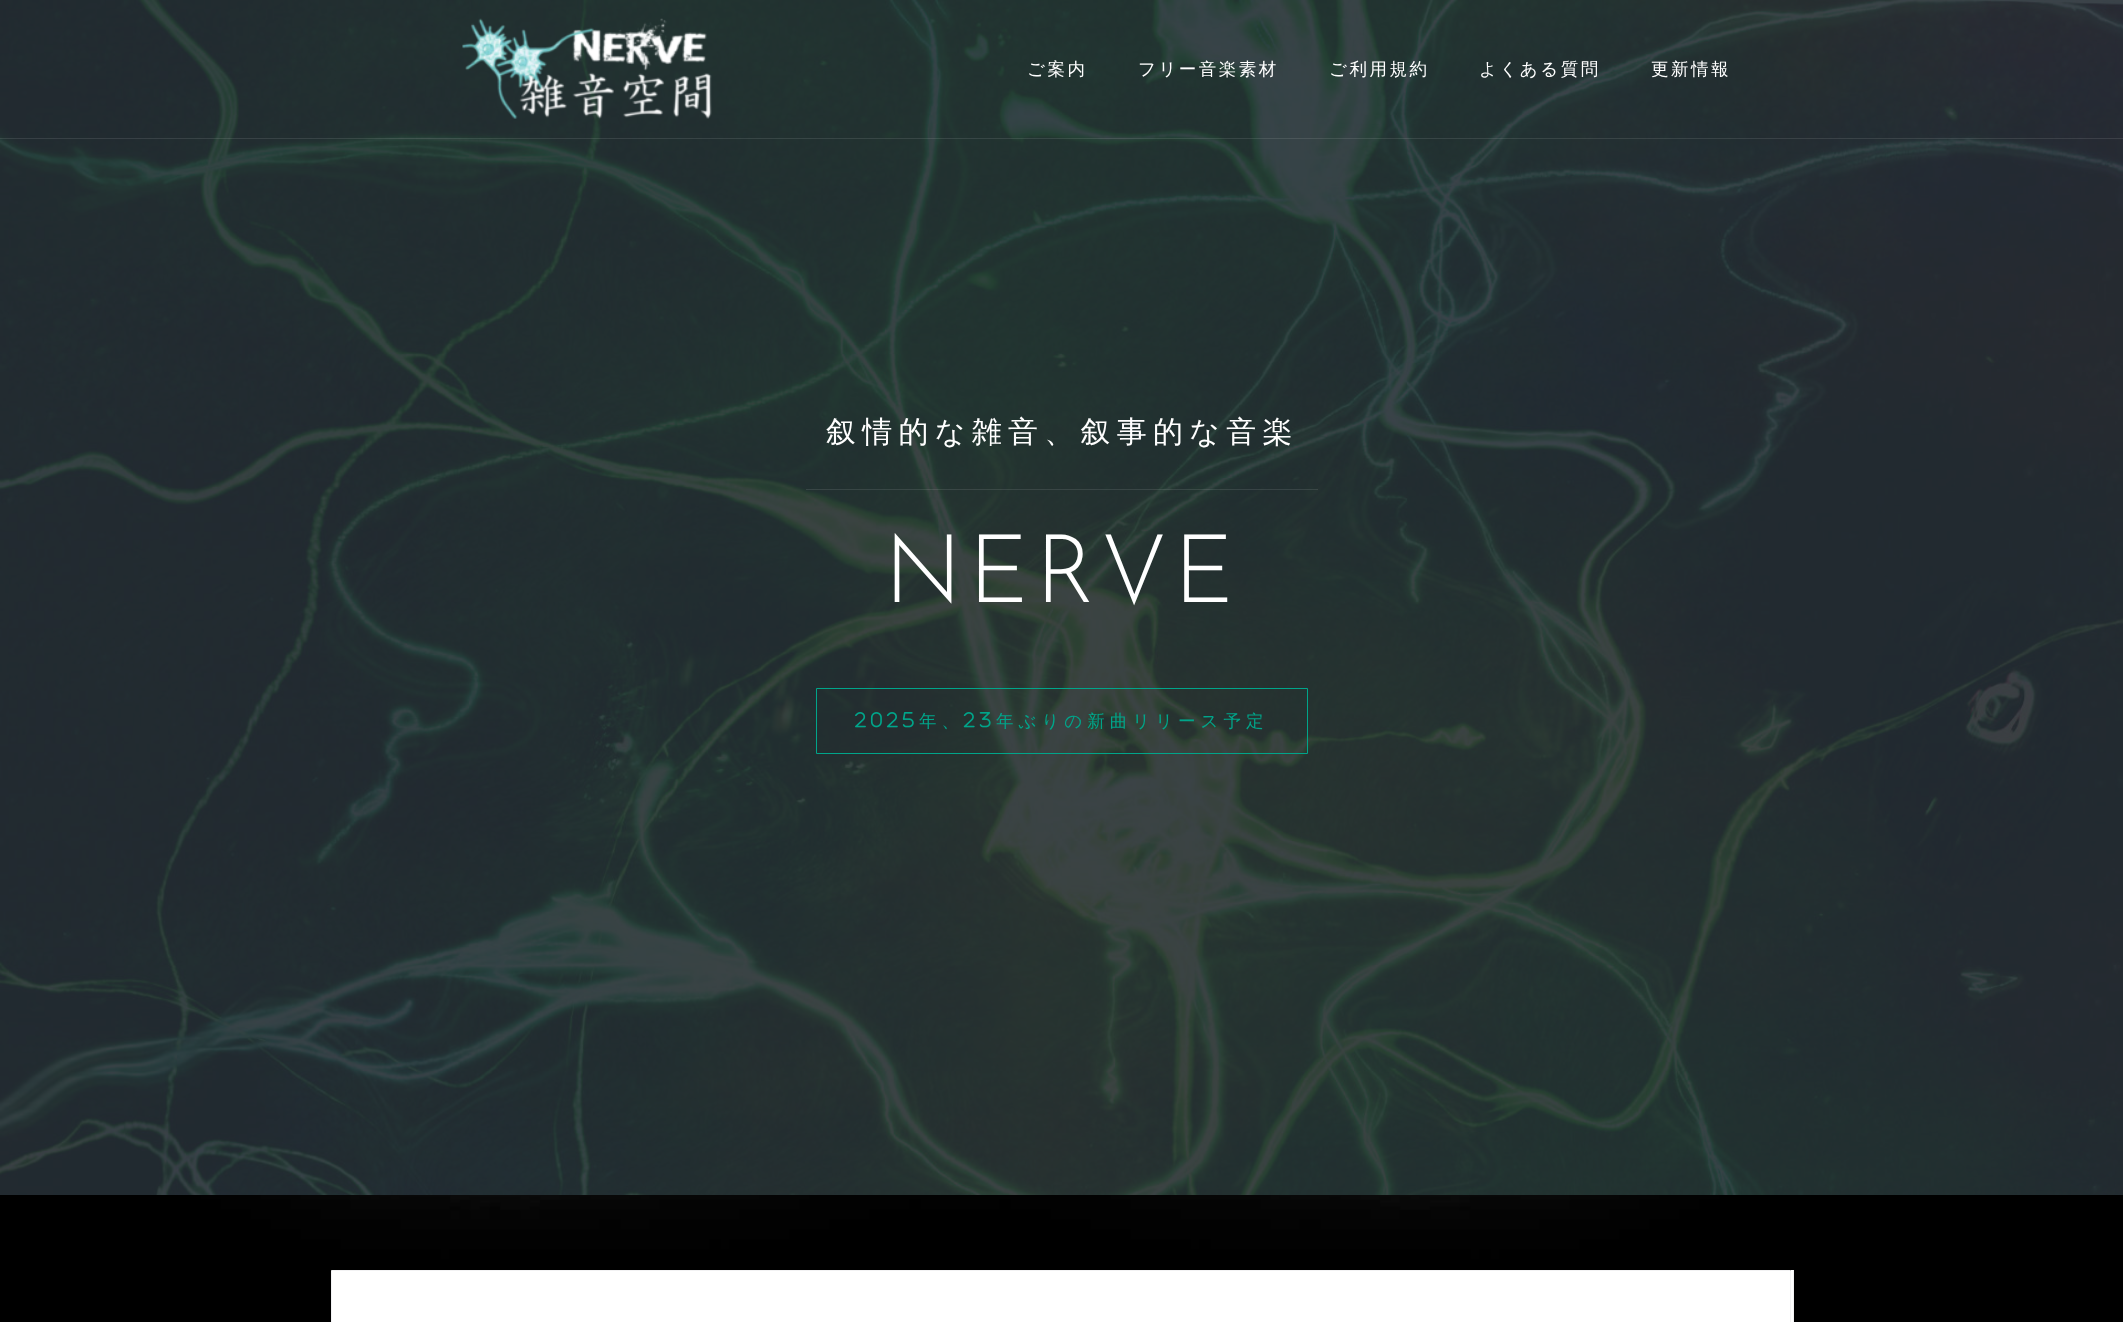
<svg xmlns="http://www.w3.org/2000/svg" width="2123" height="1322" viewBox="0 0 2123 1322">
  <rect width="100%" height="100%" fill="#fff"/>
  <image x="0" y="1195" width="2123" height="127" href="img/1.png"/>
  <image x="0" y="0" width="2123" height="1195" href="img/3.png"/>
  <path d="M0 138h2123v1H0z" fill="#ffffff1a"/>
  <image x="462" y="18" width="250" height="101" href="img/2.png"/>
  <path d="M806 489h512v1H806z" fill="#ffffff1a"/>
  <path d="M816.5 688.5h491v65H816.5z" fill="none" stroke="#00a58a"/>
  <image x="855" y="712" width="59" height="16" href="img/4.png"/>
  <image x="963" y="712" width="28" height="16" href="img/5.png"/>
  <path d="M1791 1270h2v52H1791z" fill="#fff"/>
  <path d="M1793 1270h1v52H1793z" fill="#f2f2f3"/>
  <path d="M331.5 1270.5h1459v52H331.5z" fill="#fff" stroke="#f2f2f3"/>
  <g font-family="WenQuanYi Zen Hei" font-size="17.5" font-weight="500" letter-spacing="2.5" fill="#fff">
    <text x="1027" y="75">ご案内</text>
    <text x="1138" y="75">フリー音楽素材</text>
    <text x="1329" y="75">ご利用規約</text>
    <text x="1479" y="75">よくある質問</text>
    <text x="1651" y="75">更新情報</text>
  </g>
  <text x="826" y="442" font-family="WenQuanYi Zen Hei" font-size="30" font-weight="500" letter-spacing="6.25" fill="#fff">叙情的な雑音、叙事的な音楽</text>
  <text x="884" y="602" font-family="Josefin Sans" font-size="95" font-weight="300" letter-spacing="6.25" fill="#fff">NERVE</text>
  <g font-family="WenQuanYi Zen Hei" font-size="17.5" font-weight="500" letter-spacing="5" fill="#00a58a">
    <text x="919" y="727">年、</text>
    <text x="996" y="727">年ぶりの新曲リリース予定</text>
  </g>
</svg>
